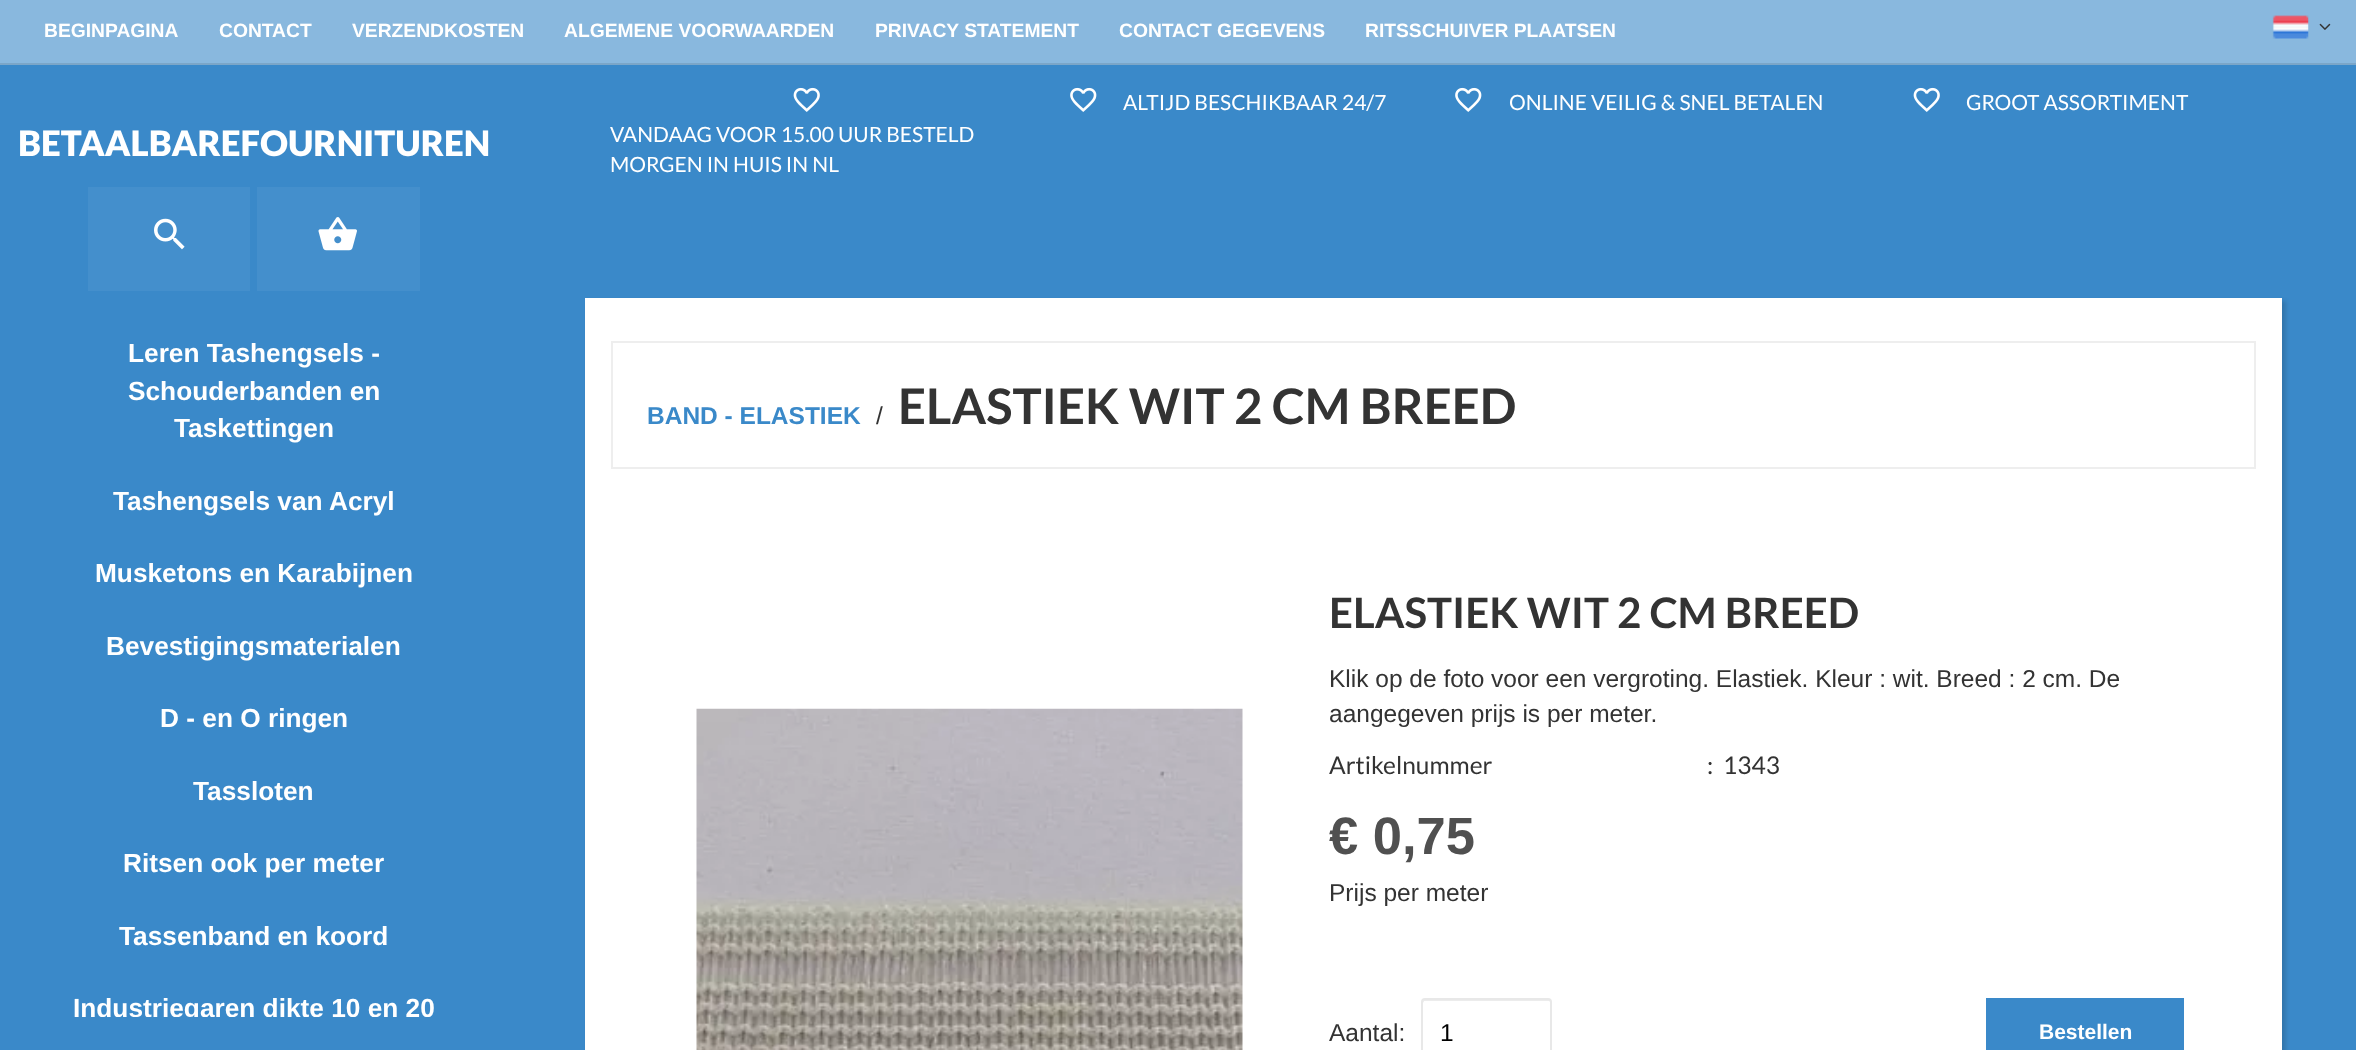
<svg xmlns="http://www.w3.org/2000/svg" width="2356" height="1050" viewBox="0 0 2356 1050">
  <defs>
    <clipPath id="clip1"><path d="M0 317h508v700H0z"/></clipPath>
  </defs>
  <rect width="100%" height="100%" fill="#3a89c9"/>
  <path d="M0 0h2356v63H0z" fill="#89b8de"/>
  <path d="M0 63h2356v2H0z" fill="#7ba6c8"/>
  <image x="2272" y="15" width="37" height="24" href="img/1.png"/>
  <image x="2319" y="23" width="12" height="7" href="img/2.png"/>
  <path d="M88 187h162v104H88z" fill="#448fcc"/>
  <image x="154" y="218" width="31" height="32" href="img/3.png"/>
  <path d="M257 187h163v104H257z" fill="#448fcc"/>
  <image x="318" y="217" width="39" height="34" href="img/4.png"/>
  <image x="1070" y="87" width="27" height="25" href="img/5.png"/>
  <image x="1455" y="87" width="27" height="25" href="img/5.png"/>
  <image x="1913" y="87" width="27" height="25" href="img/6.png"/>
  <image x="793" y="87" width="27" height="25" href="img/6.png"/>
  <path d="M588 301h1698v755H588z" fill="#00000026" filter="blur(2px)"/>
  <path d="M585 298h1697v752H585z" fill="#fff"/>
  <path d="M612 342h1643v126H612z" fill="none" stroke="#eee" stroke-width="2"/>
  <image x="696" y="708" width="547" height="342" href="img/7.png"/>
  <path d="M1424 1001H1549C1550 1001 1550 1002 1550 1003V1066C1551 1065 1551 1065 1551 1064V1001C1551 1000 1550 999 1549 999H1425C1424 999 1423 1000 1423 1001V1003Z" fill="#ececec"/>
  <rect x="1422" y="999" width="129" height="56" rx="3" fill="none" stroke="#e8e8e8" stroke-width="2"/>
  <path d="M1986 998h198v52H1986z" fill="#3a89c9"/>
  <g font-family="Liberation Sans" font-size="19.25" font-weight="bold" fill="#fff">
    <text x="44" y="37">BEGINPAGINA</text>
    <text x="219" y="37">CONTACT</text>
    <text x="352" y="37">VERZENDKOSTEN</text>
    <text x="564" y="37">ALGEMENE VOORWAARDEN</text>
    <text x="875" y="37">PRIVACY STATEMENT</text>
    <text x="1119" y="37">CONTACT GEGEVENS</text>
    <text x="1365" y="37">RITSSCHUIVER PLAATSEN</text>
  </g>
  <text x="18" y="156" font-family="Lato" font-size="35" font-weight="900" fill="#fff">BETAALBAREFOURNITUREN</text>
  <g font-family="Liberation Sans" font-size="26.25" font-weight="bold" fill="#fff">
    <text x="128" y="362">Leren Tashengsels -</text>
    <text x="128" y="400">Schouderbanden en</text>
    <text x="174" y="437">Taskettingen</text>
    <text x="113" y="510">Tashengsels van Acryl</text>
    <text x="95" y="582">Musketons en Karabijnen</text>
    <text x="106" y="655">Bevestigingsmaterialen</text>
    <text x="160" y="727">D - en O ringen</text>
    <text x="193" y="800">Tassloten</text>
    <text x="123" y="872">Ritsen ook per meter</text>
    <text x="119" y="945">Tassenband en koord</text>
  </g>
  <g clip-path="url(#clip1)">
    <text x="73" y="1017" font-family="Liberation Sans" font-size="26.25" font-weight="bold" fill="#fff">Industriegaren dikte 10 en 20</text>
  </g>
  <g font-family="Lato" font-size="21" fill="#fff">
    <text x="1123" y="110">ALTIJD BESCHIKBAAR 24/7</text>
    <text x="1509" y="110">ONLINE VEILIG &amp; SNEL BETALEN</text>
    <text x="1966" y="110">GROOT ASSORTIMENT</text>
    <text x="610" y="142">VANDAAG VOOR 15.00 UUR BESTELD</text>
    <text x="610" y="172">MORGEN IN HUIS IN NL</text>
  </g>
  <text x="647" y="424" font-family="Liberation Sans" font-size="24.5" font-weight="bold" fill="#3a89c9">BAND - ELASTIEK</text>
  <text x="876" y="424" font-family="Liberation Sans" font-size="24.5" fill="#333">/</text>
  <text x="898" y="424" font-family="Lato" font-size="49" font-weight="bold" fill="#333">ELASTIEK WIT 2 CM BREED</text>
  <text x="1329" y="628" font-family="Lato" font-size="42" font-weight="bold" fill="#333">ELASTIEK WIT 2 CM BREED</text>
  <g font-family="Liberation Sans" font-size="24.5" fill="#333">
    <text x="1329" y="687">Klik op de foto voor een vergroting. Elastiek. Kleur : wit. Breed : 2 cm. De</text>
    <text x="1329" y="722">aangegeven prijs is per meter.</text>
  </g>
  <g font-family="Lato" font-size="24.5" fill="#333">
    <text x="1329" y="774">Artikelnummer</text>
    <text x="1707" y="774">:</text>
    <text x="1723" y="774">1343</text>
  </g>
  <text x="1329" y="854" font-family="Liberation Sans" font-size="52.5" font-weight="bold" fill="#505050">€ 0,75</text>
  <g font-family="Liberation Sans" font-size="24.5" fill="#333">
    <text x="1329" y="901">Prijs per meter</text>
    <text x="1329" y="1041">Aantal:</text>
  </g>
  <text x="1440" y="1041" font-family="Liberation Sans" font-size="24.5" fill="#000">1</text>
  <text x="2039" y="1039" font-family="Liberation Sans" font-size="21" font-weight="bold" fill="#fff">Bestellen</text>
</svg>
